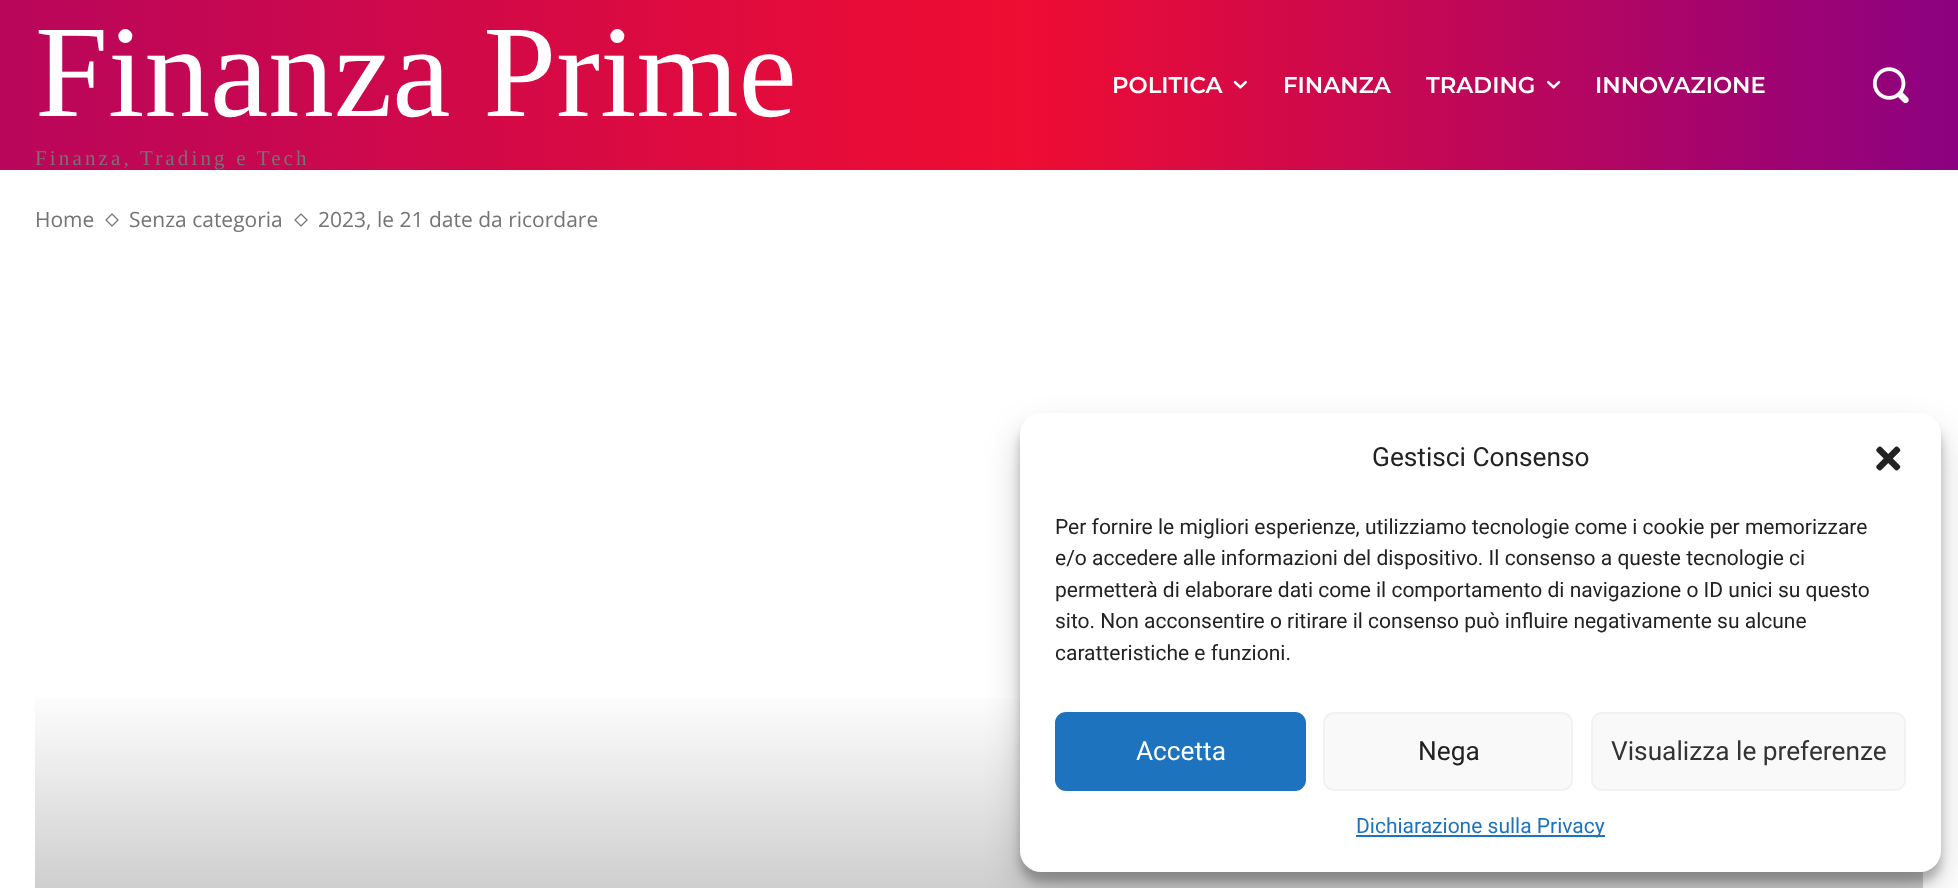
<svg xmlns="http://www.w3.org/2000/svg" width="1958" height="888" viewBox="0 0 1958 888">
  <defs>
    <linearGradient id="g1" gradientUnits="userSpaceOnUse" x1="1958" y1="85" x2="0" y2="85"><stop offset="0" stop-color="#8c0181"/><stop offset="0.48" stop-color="#ef0d32"/><stop offset="1" stop-color="#b9065b"/></linearGradient>
    <linearGradient id="g2" gradientUnits="userSpaceOnUse" x1="979" y1="268" x2="979" y2="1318"><stop offset="0" stop-color="#fff"/><stop offset="0.4" stop-color="#fff"/><stop offset="1" stop-color="#666"/></linearGradient>
  </defs>
  <rect width="100%" height="100%" fill="#fff"/>
  <path d="M0 0h1958v170H0z" fill="url(#g1)"/>
  <image x="1233" y="80" width="14" height="9" href="img/1.png"/>
  <image x="1547" y="80" width="14" height="9" href="img/2.png"/>
  <image x="1872" y="67" width="37" height="37" href="img/3.png"/>
  <image x="105" y="213" width="14" height="14" href="img/4.png"/>
  <image x="294" y="213" width="14" height="14" href="img/4.png"/>
  <path d="M35 698h1888v190H35z" fill="url(#g2)"/>
  <rect x="1020" y="424" width="921" height="458" rx="21" fill="#0000003b" filter="blur(5px)"/>
  <rect x="1020" y="431" width="921" height="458" rx="21" fill="#00000030" filter="blur(17.5px)"/>
  <rect x="1020" y="413" width="921" height="459" rx="21" fill="#fff"/>
  <image x="1876" y="446" width="25" height="25" href="img/5.png"/>
  <rect x="1056" y="713" width="249" height="77" rx="10" fill="#1e73be" stroke="#1e73be" stroke-width="2"/>
  <rect x="1324" y="713" width="248" height="77" rx="10" fill="#f9f9f9" stroke="#f2f2f2" stroke-width="2"/>
  <rect x="1592" y="713" width="313" height="77" rx="10" fill="#f9f9f9" stroke="#f2f2f2" stroke-width="2"/>
  <path d="M1356 835h249v2H1356z" fill="#1e73be"/>
  <text x="35" y="116" font-family="Liberation Serif" font-size="131.25" fill="#fff">Finanza Prime</text>
  <text x="35" y="165" font-family="Liberation Serif" font-size="21" letter-spacing="3.15" fill="#747474">Finanza, Trading e Tech</text>
  <g font-family="Montserrat" font-size="22.75" font-weight="600" fill="#fff">
    <text x="1112" y="93">POLITICA</text>
    <text x="1283" y="93">FINANZA</text>
    <text x="1426" y="93">TRADING</text>
    <text x="1595" y="93">INNOVAZIONE</text>
  </g>
  <g font-family="Open Sans" font-size="21" fill="#747474">
    <text x="35" y="227">Home</text>
    <text x="129" y="227">Senza categoria</text>
    <text x="318" y="227">2023, le 21 date da ricordare</text>
  </g>
  <text x="1372" y="466" font-family="Roboto" font-size="26.25" fill="#222">Gestisci Consenso</text>
  <g font-family="Roboto" font-size="21" fill="#222">
    <text x="1055" y="534">Per fornire le migliori esperienze, utilizziamo tecnologie come i cookie per memorizzare</text>
    <text x="1055" y="565">e/o accedere alle informazioni del dispositivo. Il consenso a queste tecnologie ci</text>
    <text x="1055" y="597">permetterà di elaborare dati come il comportamento di navigazione o ID unici su questo</text>
    <text x="1055" y="628">sito. Non acconsentire o ritirare il consenso può influire negativamente su alcune</text>
    <text x="1055" y="660">caratteristiche e funzioni.</text>
  </g>
  <text x="1136" y="760" font-family="Roboto" font-size="26.25" fill="#fff">Accetta</text>
  <text x="1418" y="760" font-family="Roboto" font-size="26.25" fill="#222">Nega</text>
  <text x="1611" y="760" font-family="Roboto" font-size="26.25" fill="#333">Visualizza le preferenze</text>
  <text x="1356" y="833" font-family="Roboto" font-size="21" fill="#1e73be">Dichiarazione sulla Privacy</text>
</svg>
